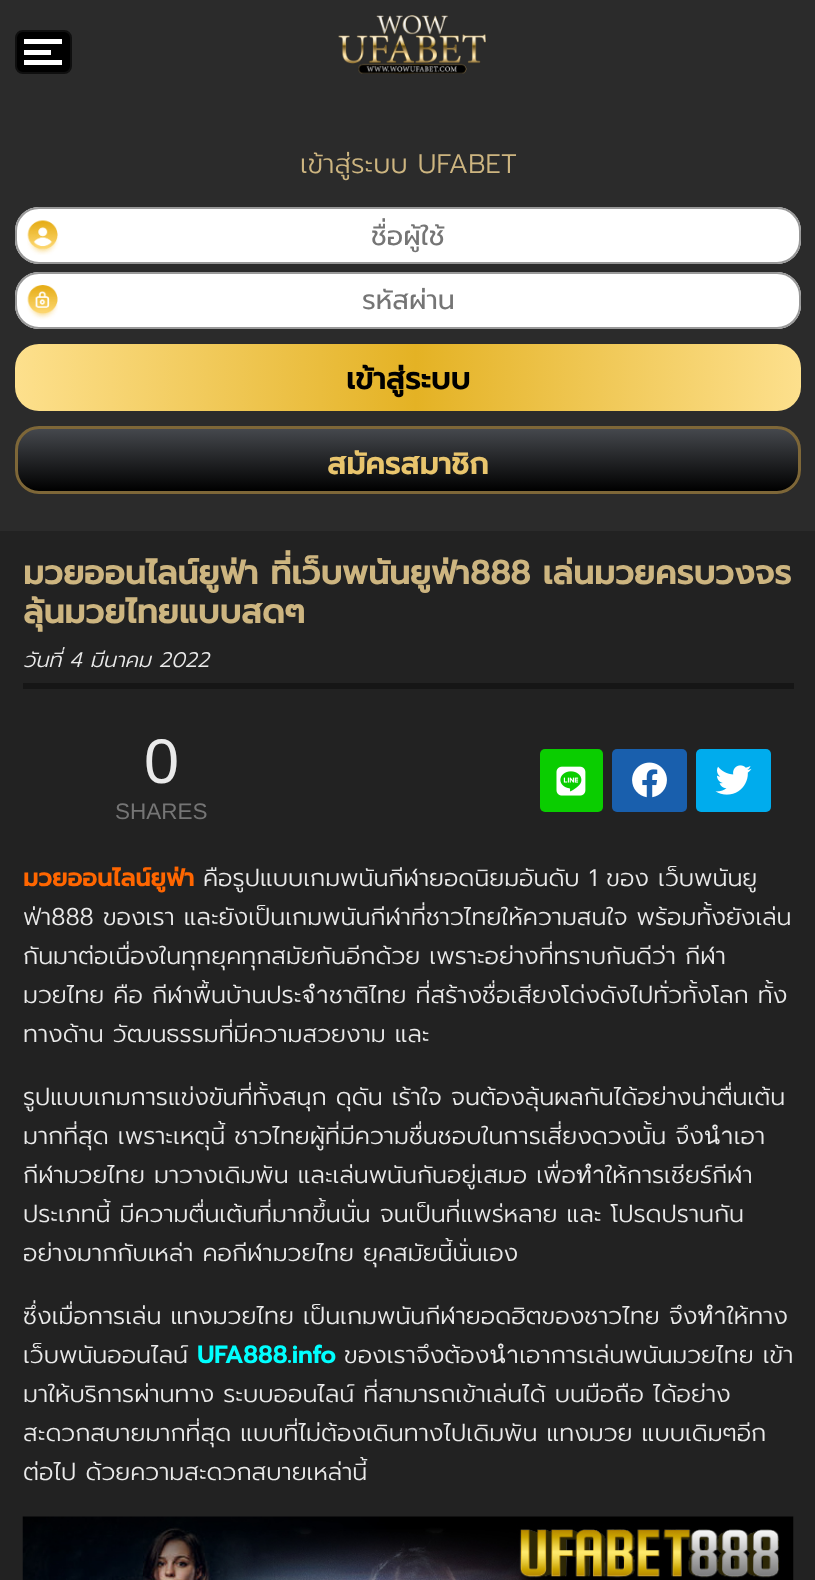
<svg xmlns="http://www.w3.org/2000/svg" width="815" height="1580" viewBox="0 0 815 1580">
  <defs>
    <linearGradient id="g1" gradientUnits="userSpaceOnUse" x1="15" y1="377" x2="801" y2="377"><stop offset="0" stop-color="#fde08d"/><stop offset="0.51" stop-color="#e4b224"/><stop offset="1" stop-color="#fde08d"/></linearGradient>
    <clipPath id="clip1"><rect x="15" y="426" width="786" height="68" rx="24"/></clipPath>
    <linearGradient id="g2" gradientUnits="userSpaceOnUse" x1="408" y1="429" x2="408" y2="491"><stop offset="0" stop-color="#45484d"/><stop offset="1" stop-color="#000"/></linearGradient>
    <clipPath id="clip2"><path d="M23 848h771v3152H23z"/></clipPath>
  </defs>
  <rect width="100%" height="100%" fill="#2b2b2b"/>
  <rect x="16" y="31" width="55" height="42" rx="7" fill="#000" stroke="#0f0f0f" stroke-width="2"/>
  <path d="M24 39h38v5H24z" fill="#fff"/>
  <path d="M24 50h27v5H24z" fill="#fff"/>
  <path d="M24 60h38v5H24z" fill="#fff"/>
  <image x="338" y="15" width="149" height="59" href="img/1.png"/>
  <rect x="15" y="207" width="786" height="57" rx="24" fill="#fff"/>
  <image x="27" y="220" width="32" height="35" href="img/2.png"/>
  <rect x="16" y="208" width="784" height="55" rx="23" fill="none" stroke="#999" stroke-width="2"/>
  <rect x="15" y="272" width="786" height="57" rx="24" fill="#fff"/>
  <image x="27" y="285" width="31" height="35" href="img/3.png"/>
  <rect x="16" y="273" width="784" height="55" rx="23" fill="none" stroke="#999" stroke-width="2"/>
  <rect x="15" y="344" width="786" height="67" rx="24" fill="url(#g1)"/>
  <g clip-path="url(#clip1)">
    <path d="M15 429h786v62H15z" fill="url(#g2)"/>
  </g>
  <rect x="16.5" y="427.5" width="783" height="65" rx="22.5" fill="none" stroke="#7e6738" stroke-width="3"/>
  <path d="M0 531h815v1049H0z" fill="#222"/>
  <path d="M23 683h771v6H23z" fill="#161616"/>
  <rect x="540" y="749" width="63" height="63" rx="5" fill="#0acd00"/>
  <image x="556" y="766" width="30" height="30" href="img/4.png"/>
  <rect x="612" y="749" width="75" height="63" rx="5" fill="#195fad"/>
  <image x="632" y="762" width="35" height="36" href="img/5.png"/>
  <rect x="696" y="749" width="75" height="63" rx="5" fill="#00aced"/>
  <image x="715" y="765" width="37" height="30" href="img/6.png"/>
  <image x="22" y="1516" width="772" height="64" href="img/7.png"/>
  <text x="300" y="173" font-family="Prompt" font-size="27" font-weight="300" fill="#cdb580">เข้าสู่ระบบ UFABET</text>
  <g font-family="Prompt" font-size="27" fill="#757575">
    <text x="371" y="245">ชื่อผู้ใช้</text>
    <text x="362" y="309">รหัสผ่าน</text>
  </g>
  <text x="346" y="389" font-family="Prompt" font-size="30" font-weight="bold" fill="#000">เข้าสู่ระบบ</text>
  <text x="327" y="474" font-family="Prompt" font-size="30" font-weight="bold" fill="#e9c56d">สมัครสมาชิก</text>
  <g font-family="Prompt" font-size="33" font-weight="bold" fill="#cdb580">
    <text x="23" y="584">มวยออนไลน์ยูฟ่า ที่เว็บพนันยูฟ่า888 เล่นมวยครบวงจร</text>
    <text x="23" y="623">ลุ้นมวยไทยแบบสดๆ</text>
  </g>
  <text x="23" y="667" font-family="Prompt" font-size="21" font-weight="300" font-style="italic" fill="#eaeaea">วันที่ 4 มีนาคม 2022</text>
  <text x="144" y="783" font-family="Liberation Sans" font-size="63" fill="#eaeaea">0</text>
  <text x="115" y="819" font-family="Liberation Sans" font-size="22.5" fill="#757575">SHARES</text>
  <text x="23" y="886" font-family="Prompt" font-size="24" font-weight="bold" fill="#f60">มวยออนไลน์ยูฟ่า</text>
  <text x="203" y="886" font-family="Prompt" font-size="24" font-weight="300" fill="#eaeaea">คือรูปแบบเกมพนันกีฬายอดนิยมอันดับ 1 ของ เว็บพนันยู</text>
  <g clip-path="url(#clip2)">
    <g font-family="Prompt" font-size="24" font-weight="300" fill="#eaeaea">
      <text x="23" y="925">ฟ่า888 ของเรา และยังเป็นเกมพนันกีฬาที่ชาวไทยให้ความสนใจ พร้อมทั้งยังเล่น</text>
      <text x="23" y="964">กันมาต่อเนื่องในทุกยุคทุกสมัยกันอีกด้วย เพราะอย่างที่ทราบกันดีว่า กีฬา</text>
    </g>
  </g>
  <g font-family="Prompt" font-size="24" font-weight="300" fill="#eaeaea">
    <text x="23" y="1003">มวยไทย คือ กีฬาพื้นบ้านประจำชาติไทย ที่สร้างชื่อเสียงโด่งดังไปทั่วทั้งโลก ทั้ง</text>
    <text x="23" y="1042">ทางด้าน วัฒนธรรมที่มีความสวยงาม และ</text>
  </g>
  <g clip-path="url(#clip2)">
    <text x="23" y="1105" font-family="Prompt" font-size="24" font-weight="300" fill="#eaeaea">รูปแบบเกมการแข่งขันที่ทั้งสนุก ดุดัน เร้าใจ จนต้องลุ้นผลกันได้อย่างน่าตื่นเต้น</text>
  </g>
  <text x="23" y="1144" font-family="Prompt" font-size="24" font-weight="300" fill="#eaeaea">มากที่สุด เพราะเหตุนี้ ชาวไทยผู้ที่มีความชื่นชอบในการเสี่ยงดวงนั้น จึงนำเอา</text>
  <g clip-path="url(#clip2)">
    <text x="23" y="1183" font-family="Prompt" font-size="24" font-weight="300" fill="#eaeaea">กีฬามวยไทย มาวางเดิมพัน และเล่นพนันกันอยู่เสมอ เพื่อทำให้การเชียร์กีฬา</text>
  </g>
  <g font-family="Prompt" font-size="24" font-weight="300" fill="#eaeaea">
    <text x="23" y="1222">ประเภทนี้ มีความตื่นเต้นที่มากขึ้นนั่น จนเป็นที่แพร่หลาย และ โปรดปรานกัน</text>
    <text x="23" y="1261">อย่างมากกับเหล่า คอกีฬามวยไทย ยุคสมัยนี้นั่นเอง</text>
  </g>
  <g clip-path="url(#clip2)">
    <g font-family="Prompt" font-size="24" font-weight="300" fill="#eaeaea">
      <text x="23" y="1324">ซึ่งเมื่อการเล่น แทงมวยไทย เป็นเกมพนันกีฬายอดฮิตของชาวไทย จึงทำให้ทาง</text>
      <text x="23" y="1363">เว็บพนันออนไลน์</text>
    </g>
  </g>
  <text x="197" y="1363" font-family="Prompt" font-size="24" font-weight="bold" fill="#0ff">UFA888.info</text>
  <g font-family="Prompt" font-size="24" font-weight="300" fill="#eaeaea">
    <text x="344" y="1363">ของเราจึงต้องนำเอาการเล่นพนันมวยไทย เข้า</text>
    <text x="23" y="1402">มาให้บริการผ่านทาง ระบบออนไลน์ ที่สามารถเข้าเล่นได้ บนมือถือ ได้อย่าง</text>
    <text x="23" y="1441">สะดวกสบายมากที่สุด แบบที่ไม่ต้องเดินทางไปเดิมพัน แทงมวย แบบเดิมๆอีก</text>
  </g>
  <g clip-path="url(#clip2)">
    <text x="23" y="1480" font-family="Prompt" font-size="24" font-weight="300" fill="#eaeaea">ต่อไป ด้วยความสะดวกสบายเหล่านี้</text>
  </g>
</svg>
